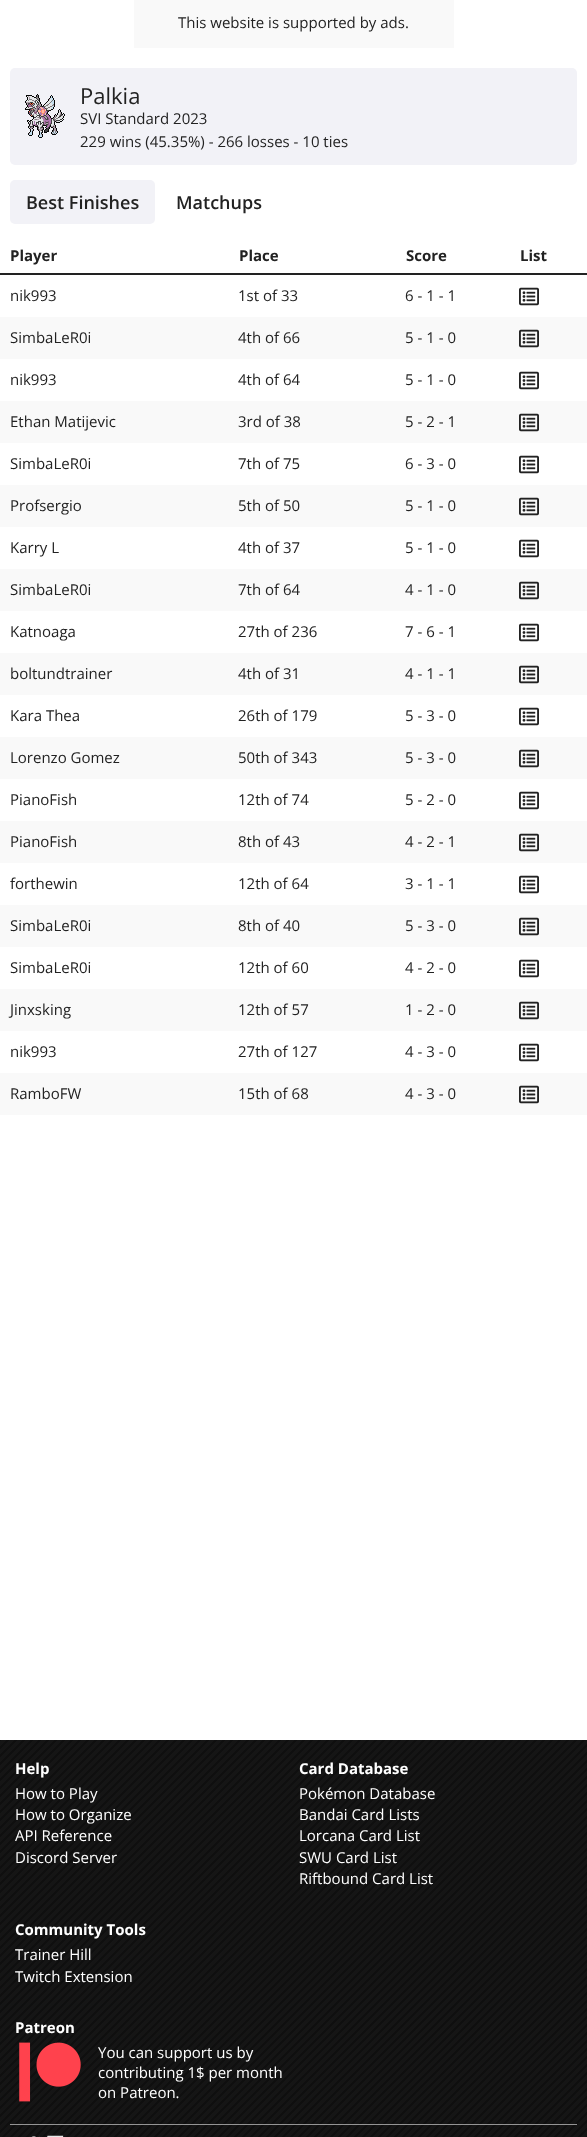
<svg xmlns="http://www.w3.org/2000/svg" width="587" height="2137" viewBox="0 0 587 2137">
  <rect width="100%" height="100%" fill="#fff"/>
  <path d="M134 0h320v48H134z" fill="#f9f9f9"/>
  <rect x="10" y="68" width="567" height="97" rx="5" fill="#f2f2f7"/>
  <image x="25" y="94" width="40" height="44" href="img/1.png"/>
  <rect x="10" y="180" width="145" height="44" rx="5" fill="#f2f2f7"/>
  <path d="M0 273h514v2H0z" fill="#222"/>
  <path d="M514 273h73v2H514z" fill="#222"/>
  <image x="519" y="287" width="20" height="19" href="img/2.png"/>
  <path d="M0 317h587v42H0z" fill="#f9f9f9"/>
  <image x="519" y="329" width="20" height="19" href="img/3.png"/>
  <image x="519" y="371" width="20" height="19" href="img/2.png"/>
  <path d="M0 401h587v42H0z" fill="#f9f9f9"/>
  <image x="519" y="413" width="20" height="19" href="img/3.png"/>
  <image x="519" y="455" width="20" height="19" href="img/2.png"/>
  <path d="M0 485h587v42H0z" fill="#f9f9f9"/>
  <image x="519" y="497" width="20" height="19" href="img/3.png"/>
  <image x="519" y="539" width="20" height="19" href="img/2.png"/>
  <path d="M0 569h587v42H0z" fill="#f9f9f9"/>
  <image x="519" y="581" width="20" height="19" href="img/3.png"/>
  <image x="519" y="623" width="20" height="19" href="img/2.png"/>
  <path d="M0 653h587v42H0z" fill="#f9f9f9"/>
  <image x="519" y="665" width="20" height="19" href="img/3.png"/>
  <image x="519" y="707" width="20" height="19" href="img/2.png"/>
  <path d="M0 737h587v42H0z" fill="#f9f9f9"/>
  <image x="519" y="749" width="20" height="19" href="img/3.png"/>
  <image x="519" y="791" width="20" height="19" href="img/2.png"/>
  <path d="M0 821h587v42H0z" fill="#f9f9f9"/>
  <image x="519" y="833" width="20" height="19" href="img/3.png"/>
  <image x="519" y="875" width="20" height="19" href="img/2.png"/>
  <path d="M0 905h587v42H0z" fill="#f9f9f9"/>
  <image x="519" y="917" width="20" height="19" href="img/3.png"/>
  <image x="519" y="959" width="20" height="19" href="img/2.png"/>
  <path d="M0 989h587v42H0z" fill="#f9f9f9"/>
  <image x="519" y="1001" width="20" height="19" href="img/3.png"/>
  <image x="519" y="1043" width="20" height="19" href="img/2.png"/>
  <path d="M0 1073h587v42H0z" fill="#f9f9f9"/>
  <image x="519" y="1085" width="20" height="19" href="img/3.png"/>
  <image x="0" y="1740" width="587" height="397" href="img/4.png"/>
  <image x="19" y="2042" width="62" height="60" href="img/5.png"/>
  <path d="M10 2124h567v1H10z" fill="#d3d3d3ad"/>
  <image x="31" y="2136" width="9" height="1" href="img/6.png"/>
  <image x="47" y="2135" width="17" height="2" href="img/7.png"/>
  <text x="178" y="28" font-family="Open Sans" font-size="15" fill="#222">This website is supported by ads.</text>
  <text x="80" y="104" font-family="Open Sans" font-size="22" fill="#222">Palkia</text>
  <g font-family="Open Sans" font-size="15" fill="#222">
    <text x="80" y="124">SVI Standard 2023</text>
    <text x="80" y="147">229 wins (45.35%) - 266 losses - 10 ties</text>
  </g>
  <g font-family="Open Sans" font-size="18" font-weight="600" fill="#222">
    <text x="26" y="209">Best Finishes</text>
    <text x="176" y="209">Matchups</text>
  </g>
  <g font-family="Open Sans" font-size="15" font-weight="bold" fill="#222">
    <text x="10" y="261">Player</text>
    <text x="239" y="261">Place</text>
    <text x="406" y="261">Score</text>
    <text x="520" y="261">List</text>
  </g>
  <g font-family="Open Sans" font-size="15" fill="#222">
    <text x="10" y="301">nik993</text>
    <text x="238" y="301">1st of 33</text>
    <text x="405" y="301">6 - 1 - 1</text>
    <text x="10" y="343">SimbaLeR0i</text>
    <text x="238" y="343">4th of 66</text>
    <text x="405" y="343">5 - 1 - 0</text>
    <text x="10" y="385">nik993</text>
    <text x="238" y="385">4th of 64</text>
    <text x="405" y="385">5 - 1 - 0</text>
    <text x="10" y="427">Ethan Matijevic</text>
    <text x="238" y="427">3rd of 38</text>
    <text x="405" y="427">5 - 2 - 1</text>
    <text x="10" y="469">SimbaLeR0i</text>
    <text x="238" y="469">7th of 75</text>
    <text x="405" y="469">6 - 3 - 0</text>
    <text x="10" y="511">Profsergio</text>
    <text x="238" y="511">5th of 50</text>
    <text x="405" y="511">5 - 1 - 0</text>
    <text x="10" y="553">Karry L</text>
    <text x="238" y="553">4th of 37</text>
    <text x="405" y="553">5 - 1 - 0</text>
    <text x="10" y="595">SimbaLeR0i</text>
    <text x="238" y="595">7th of 64</text>
    <text x="405" y="595">4 - 1 - 0</text>
    <text x="10" y="637">Katnoaga</text>
    <text x="238" y="637">27th of 236</text>
    <text x="405" y="637">7 - 6 - 1</text>
    <text x="10" y="679">boltundtrainer</text>
    <text x="238" y="679">4th of 31</text>
    <text x="405" y="679">4 - 1 - 1</text>
    <text x="10" y="721">Kara Thea</text>
    <text x="238" y="721">26th of 179</text>
    <text x="405" y="721">5 - 3 - 0</text>
    <text x="10" y="763">Lorenzo Gomez</text>
    <text x="238" y="763">50th of 343</text>
    <text x="405" y="763">5 - 3 - 0</text>
    <text x="10" y="805">PianoFish</text>
    <text x="238" y="805">12th of 74</text>
    <text x="405" y="805">5 - 2 - 0</text>
    <text x="10" y="847">PianoFish</text>
    <text x="238" y="847">8th of 43</text>
    <text x="405" y="847">4 - 2 - 1</text>
    <text x="10" y="889">forthewin</text>
    <text x="238" y="889">12th of 64</text>
    <text x="405" y="889">3 - 1 - 1</text>
    <text x="10" y="931">SimbaLeR0i</text>
    <text x="238" y="931">8th of 40</text>
    <text x="405" y="931">5 - 3 - 0</text>
    <text x="10" y="973">SimbaLeR0i</text>
    <text x="238" y="973">12th of 60</text>
    <text x="405" y="973">4 - 2 - 0</text>
    <text x="10" y="1015">Jinxsking</text>
    <text x="238" y="1015">12th of 57</text>
    <text x="405" y="1015">1 - 2 - 0</text>
    <text x="10" y="1057">nik993</text>
    <text x="238" y="1057">27th of 127</text>
    <text x="405" y="1057">4 - 3 - 0</text>
    <text x="10" y="1099">RamboFW</text>
    <text x="238" y="1099">15th of 68</text>
    <text x="405" y="1099">4 - 3 - 0</text>
  </g>
  <text x="15" y="1774" font-family="Open Sans" font-size="15" font-weight="bold" fill="#fff">Help</text>
  <g font-family="Open Sans" font-size="15" fill="#fff">
    <text x="15" y="1799">How to Play</text>
    <text x="15" y="1820">How to Organize</text>
    <text x="15" y="1841">API Reference</text>
    <text x="15" y="1863">Discord Server</text>
  </g>
  <text x="299" y="1774" font-family="Open Sans" font-size="15" font-weight="bold" fill="#fff">Card Database</text>
  <g font-family="Open Sans" font-size="15" fill="#fff">
    <text x="299" y="1799">Pokémon Database</text>
    <text x="299" y="1820">Bandai Card Lists</text>
    <text x="299" y="1841">Lorcana Card List</text>
    <text x="299" y="1863">SWU Card List</text>
    <text x="299" y="1884">Riftbound Card List</text>
  </g>
  <text x="15" y="1935" font-family="Open Sans" font-size="15" font-weight="bold" fill="#fff">Community Tools</text>
  <g font-family="Open Sans" font-size="15" fill="#fff">
    <text x="15" y="1960">Trainer Hill</text>
    <text x="15" y="1982">Twitch Extension</text>
  </g>
  <text x="15" y="2033" font-family="Open Sans" font-size="15" font-weight="bold" fill="#fff">Patreon</text>
  <g font-family="Open Sans" font-size="15" fill="#fff">
    <text x="98" y="2058">You can support us by</text>
    <text x="98" y="2078">contributing 1$ per month</text>
    <text x="98" y="2098">on Patreon.</text>
  </g>
</svg>
